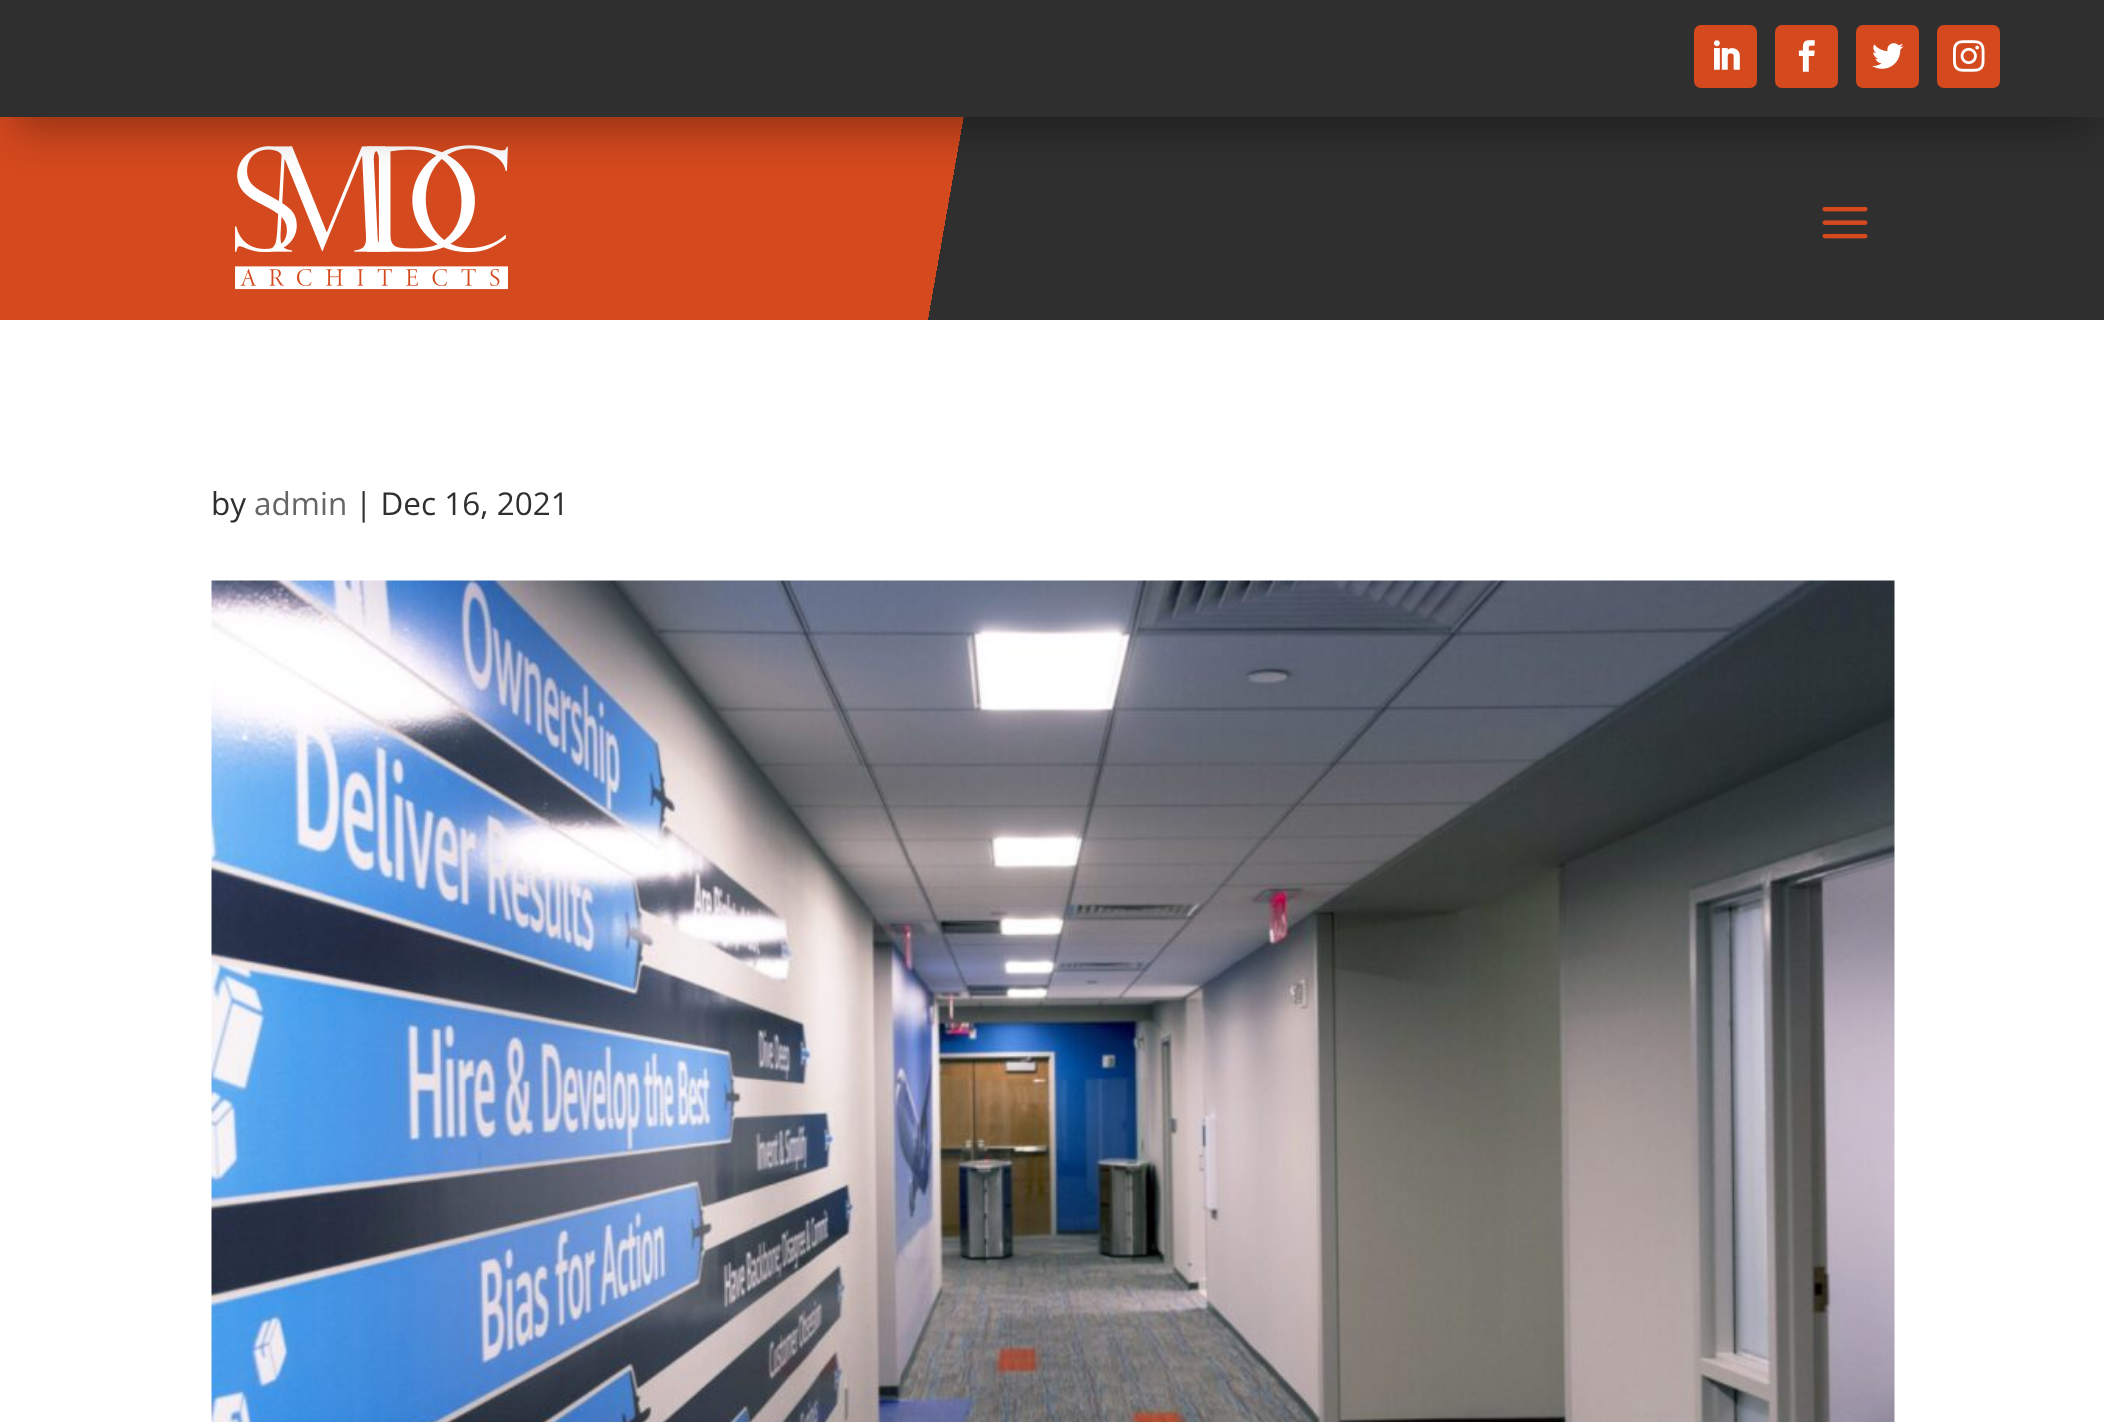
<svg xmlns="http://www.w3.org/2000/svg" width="2104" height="1422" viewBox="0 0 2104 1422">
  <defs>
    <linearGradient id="g1" gradientUnits="userSpaceOnUse" x1="14" y1="35" x2="2092" y2="401"><stop offset="0.45" stop-color="#d5491e"/><stop offset="0.45" stop-color="#2f2f2f"/></linearGradient>
  </defs>
  <rect width="100%" height="100%" fill="#fff"/>
  <path d="M0 117h2104v203H0z" fill="url(#g1)"/>
  <image x="235" y="145" width="273" height="145" href="img/5.png"/>
  <path d="M14 41h2079v90H14z" fill="#0000004d" filter="blur(20px)"/>
  <path d="M0 0h2104v117H0z" fill="#2f2f2f"/>
  <rect x="1694" y="25" width="63" height="63" rx="7" fill="#d5491e"/>
  <image x="1714" y="40" width="26" height="30" href="img/1.png"/>
  <rect x="1775" y="25" width="63" height="63" rx="7" fill="#d5491e"/>
  <image x="1798" y="40" width="17" height="32" href="img/2.png"/>
  <rect x="1856" y="25" width="63" height="63" rx="7" fill="#d5491e"/>
  <image x="1872" y="43" width="32" height="26" href="img/3.png"/>
  <rect x="1937" y="25" width="63" height="63" rx="7" fill="#d5491e"/>
  <image x="1953" y="40" width="32" height="32" href="img/4.png"/>
  <image x="1822" y="206" width="46" height="33" href="img/6.png"/>
  <image x="211" y="580" width="1684" height="842" href="img/7.png"/>
  <text x="211" y="515" font-family="Open Sans" font-size="31.5" fill="#2f2f2f">by</text>
  <text x="254" y="515" font-family="Open Sans" font-size="31.5" fill="#666">admin</text>
  <text x="355" y="515" font-family="Open Sans" font-size="31.5" fill="#2f2f2f">| Dec 16, 2021</text>
</svg>
